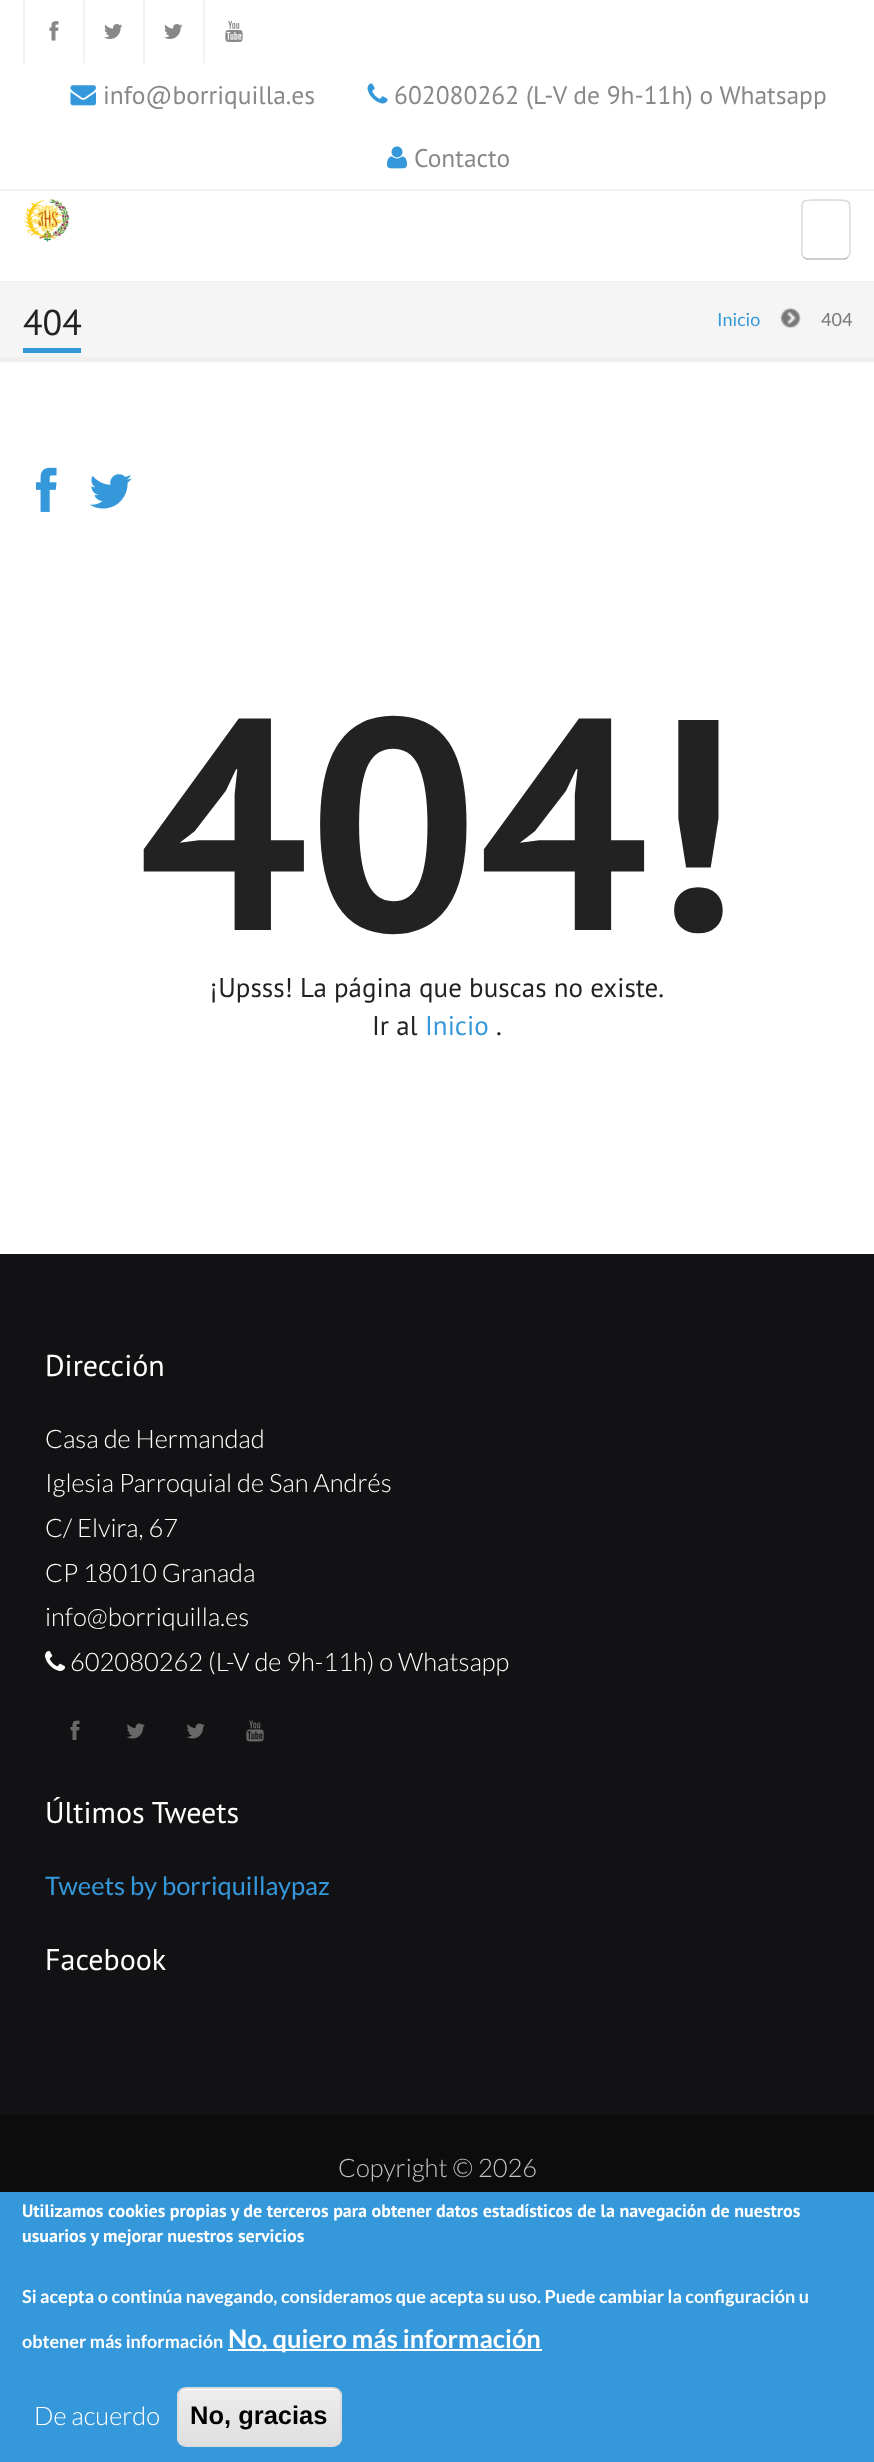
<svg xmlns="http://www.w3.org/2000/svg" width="874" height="2462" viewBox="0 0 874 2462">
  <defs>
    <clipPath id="clip1"><rect x="177" y="2387" width="165" height="60" rx="9"/></clipPath>
    <linearGradient id="g1" gradientUnits="userSpaceOnUse" x1="260" y1="2388" x2="260" y2="2445"><stop offset="0.05" stop-color="#ededed"/><stop offset="1" stop-color="#dfdfdf"/></linearGradient>
  </defs>
  <rect width="100%" height="100%" fill="#fff"/>
  <path d="M0 189h874v2H0z" fill="#f2f2f2"/>
  <path d="M23 0h2v63H23z" fill="#f2f2f2"/>
  <image x="49" y="21" width="10" height="20" href="img/1.png"/>
  <path d="M83 0h2v63H83z" fill="#f2f2f2"/>
  <image x="104" y="24" width="19" height="15" href="img/2.png"/>
  <path d="M143 0h2v63H143z" fill="#f2f2f2"/>
  <image x="164" y="24" width="19" height="15" href="img/2.png"/>
  <path d="M203 0h2v63H203z" fill="#f2f2f2"/>
  <image x="225" y="21" width="18" height="21" href="img/3.png"/>
  <image x="70" y="85" width="26" height="21" href="img/4.png"/>
  <image x="367" y="83" width="21" height="21" href="img/5.png"/>
  <image x="387" y="146" width="20" height="23" href="img/6.png"/>
  <path d="M0 281h874v1H0z" fill="#f2f2f2"/>
  <image x="24" y="199" width="45" height="43" href="img/7.png"/>
  <path d="M848 257C847 258 846 259 844.5 259H807C805.5 259 804.5 258 803.5 257" fill="none" stroke="#bfbfbf" stroke-width="1.5"/>
  <path d="M803.5 257C800.5 254.5 802 248.5 802 245.5V213.5C802 201 801 200 813 200H838C850.5 200 850 201 850 213.5V245.5C850 248.5 851 254.5 848 257" fill="none" stroke="#00000026" stroke-width="1.5"/>
  <path d="M0 282h874v75H0z" fill="#f5f5f5"/>
  <path d="M0 357h874v5H0z" fill="#efefef"/>
  <path d="M23 348h58v5H23z" fill="#3498db"/>
  <image x="780" y="307" width="21" height="22" href="img/8.png"/>
  <image x="36" y="467" width="21" height="45" href="img/9.png"/>
  <image x="89" y="474" width="43" height="35" href="img/10.png"/>
  <path d="M0 1254h874v861H0z" fill="#121214"/>
  <image x="45" y="1651" width="20" height="20" href="img/11.png"/>
  <image x="70" y="1720" width="10" height="20" href="img/12.png"/>
  <image x="126" y="1723" width="19" height="16" href="img/13.png"/>
  <image x="186" y="1723" width="19" height="16" href="img/13.png"/>
  <image x="246" y="1720" width="18" height="22" href="img/14.png"/>
  <path d="M0 2115h874v77H0z" fill="#0c0c0c"/>
  <path d="M0 2192h874v270H0z" fill="#3498db"/>
  <path d="M228 2349h314v2H228z" fill="#fff"/>
  <g clip-path="url(#clip1)">
    <path d="M177 2388h165v57H177z" fill="url(#g1)"/>
  </g>
  <path d="M186 2390H333C337 2390 340 2393 340 2397V2439V2442C340 2440 341 2439 341 2437V2396C341 2392 337 2388 333 2388H187C184 2388 181 2390 180 2393C181 2391 184 2390 186 2390Z" fill="#fff"/>
  <rect x="178" y="2388" width="163" height="58" rx="8" fill="none" stroke="#dcdcdc" stroke-width="2"/>
  <g font-family="PT Sans" font-size="25.5" fill="#888">
    <text x="103" y="104">info@borriquilla.es</text>
    <text x="394" y="104">602080262 (L-V de 9h-11h) o Whatsapp</text>
    <text x="414" y="167">Contacto</text>
  </g>
  <text x="23" y="335" font-family="PT Sans" font-size="36" fill="#222">404</text>
  <text x="717" y="326" font-family="Lato" font-size="18" fill="#3498db">Inicio</text>
  <text x="821" y="326" font-family="Lato" font-size="18" fill="#777">404</text>
  <text x="138" y="930" font-family="PT Sans" font-size="300" font-weight="bold" fill="#222">404!</text>
  <g font-family="PT Sans" font-size="27" fill="#222">
    <text x="210" y="997">¡Upsss! La página que buscas no existe.</text>
    <text x="372" y="1035">Ir al</text>
  </g>
  <text x="425" y="1035" font-family="PT Sans" font-size="27" fill="#3498db">Inicio</text>
  <text x="496" y="1035" font-family="PT Sans" font-size="27" fill="#222">.</text>
  <text x="45" y="1376" font-family="PT Sans" font-size="30" fill="#fff">Dirección</text>
  <g font-family="Lato" font-size="25.5" font-weight="300" fill="#fff">
    <text x="45" y="1448">Casa de Hermandad</text>
    <text x="45" y="1492">Iglesia Parroquial de San Andrés</text>
    <text x="45" y="1537">C/ Elvira, 67</text>
    <text x="45" y="1582">CP 18010 Granada</text>
    <text x="45" y="1626">info@borriquilla.es</text>
    <text x="70" y="1671">602080262 (L-V de 9h-11h) o Whatsapp</text>
  </g>
  <text x="45" y="1823" font-family="PT Sans" font-size="30" fill="#fff">Últimos Tweets</text>
  <text x="45" y="1895" font-family="Lato" font-size="25.5" fill="#3498db">Tweets by borriquillaypaz</text>
  <text x="45" y="1970" font-family="PT Sans" font-size="30" fill="#fff">Facebook</text>
  <text x="338" y="2177" font-family="Lato" font-size="25.5" font-weight="300" fill="#c3c3c3">Copyright © 2026</text>
  <g font-family="PT Sans" font-size="18" font-weight="bold" fill="#fff">
    <text x="22" y="2217">Utilizamos cookies propias y de terceros para obtener datos estadísticos de la navegación de nuestros</text>
    <text x="22" y="2242">usuarios y mejorar nuestros servicios</text>
  </g>
  <g font-family="Lato" font-size="18" font-weight="bold" fill="#fff">
    <text x="22" y="2303">Si acepta o continúa navegando, consideramos que acepta su uso. Puede cambiar la configuración u</text>
    <text x="22" y="2348">obtener más información</text>
  </g>
  <text x="228" y="2348" font-family="Lato" font-size="25.5" font-weight="bold" fill="#fff">No, quiero más información</text>
  <text x="34" y="2425" font-family="Lato" font-size="25.5" font-weight="300" fill="#fff">De acuerdo</text>
  <text x="190" y="2424" font-family="Liberation Sans" font-size="25.5" font-weight="bold" fill="#000">No, gracias</text>
</svg>
